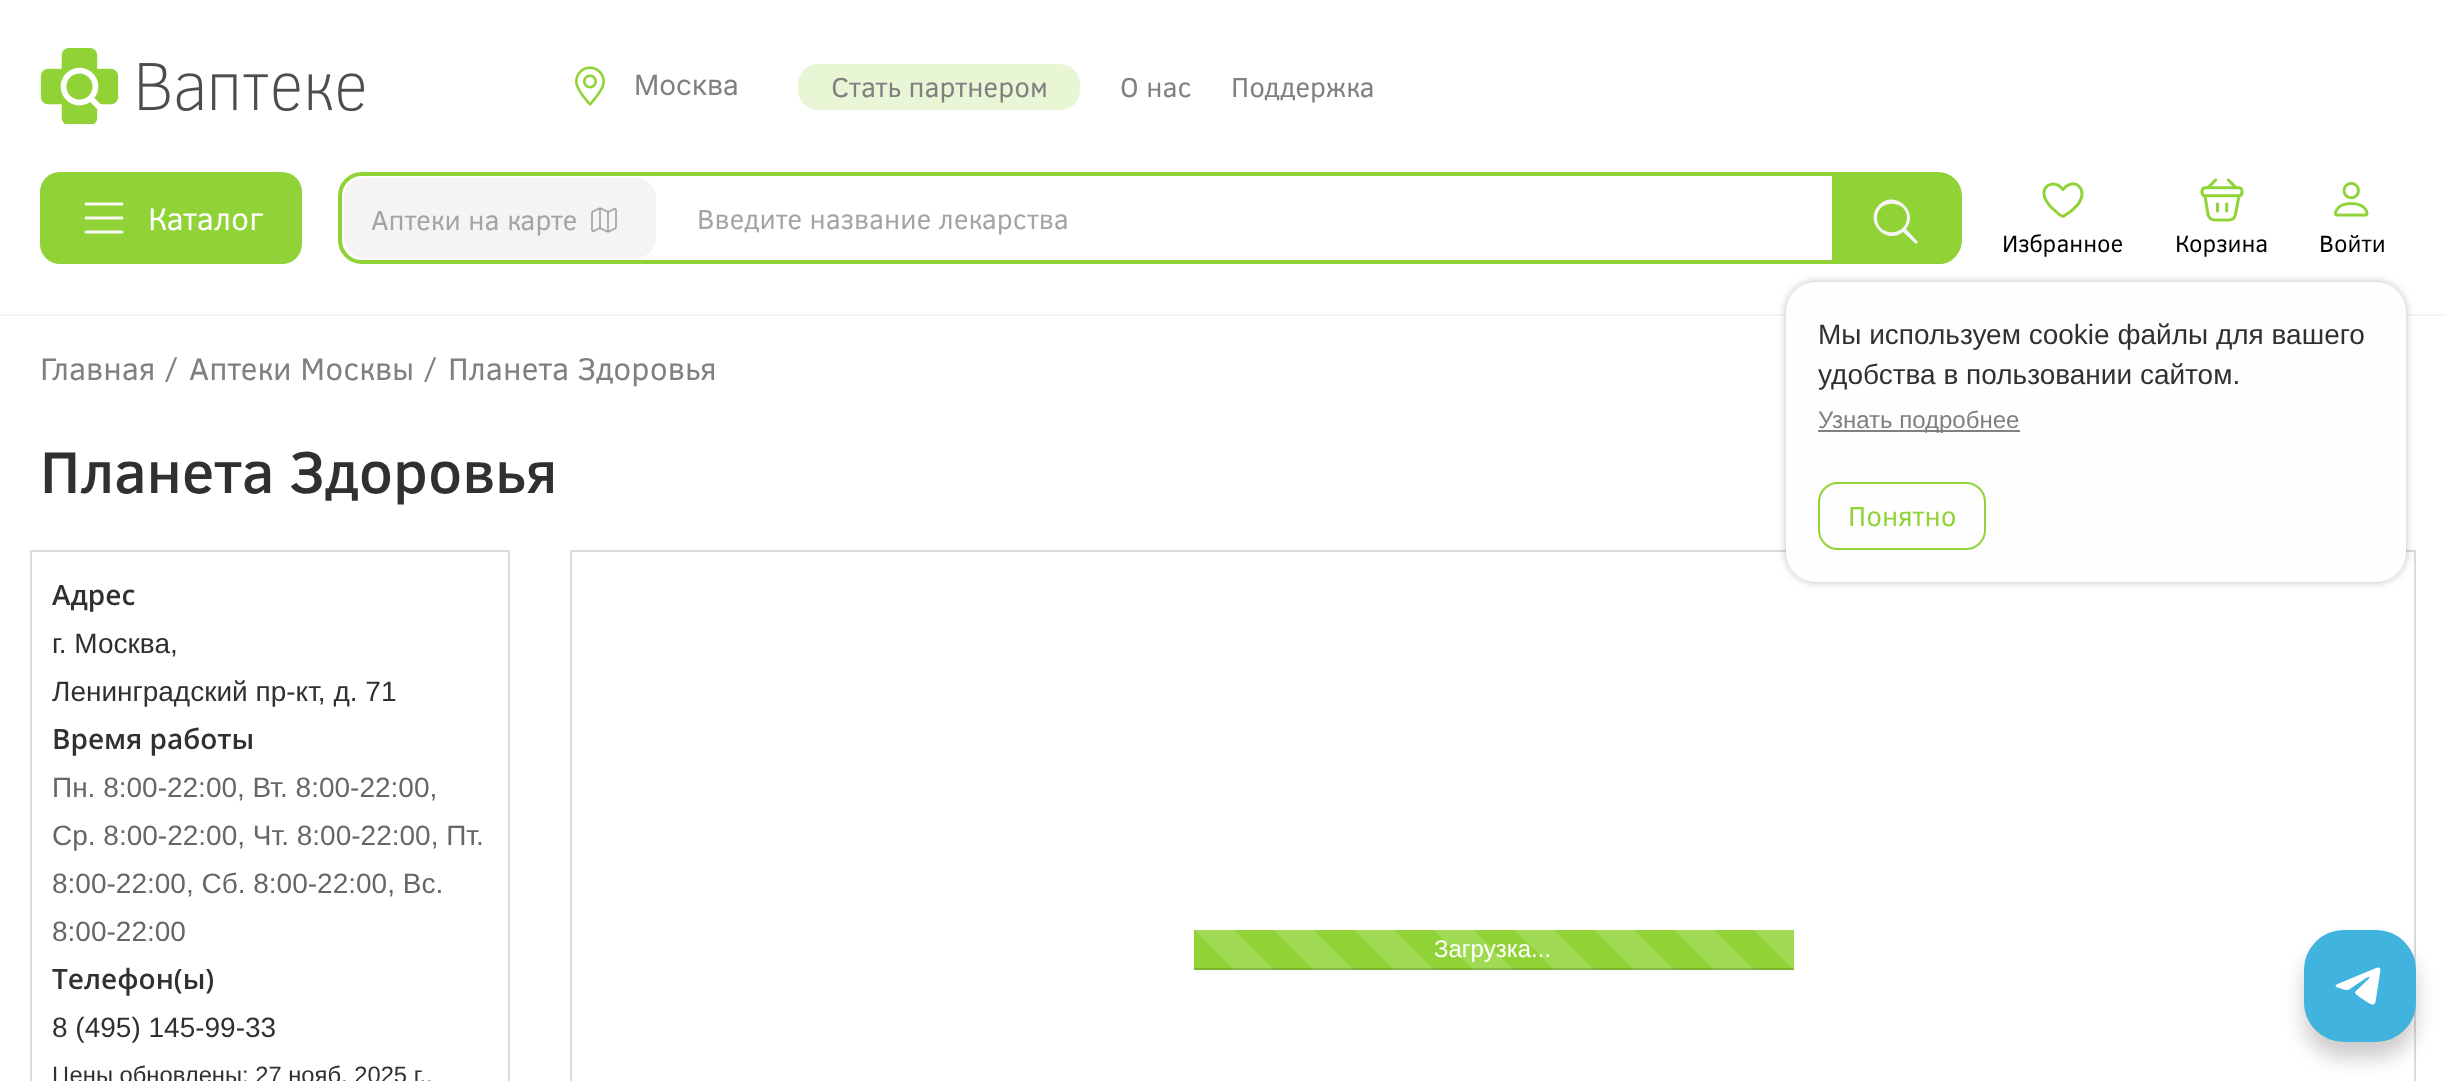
<svg xmlns="http://www.w3.org/2000/svg" width="2446" height="1081" viewBox="0 0 2446 1081">
  <defs>
    <linearGradient id="g1" gradientUnits="userSpaceOnUse" x1="1194" y1="1010" x2="1274" y2="930"><stop offset="0.25" stop-color="#a1da55"/><stop offset="0.25" stop-color="#90d337"/><stop offset="0.5" stop-color="#90d337"/><stop offset="0.5" stop-color="#a1da55"/><stop offset="0.75" stop-color="#a1da55"/><stop offset="0.75" stop-color="#90d337"/><stop offset="1" stop-color="#90d337"/></linearGradient>
    <linearGradient id="g2" gradientUnits="userSpaceOnUse" x1="1194" y1="1010" x2="1274" y2="930"><stop offset="0.25" stop-color="#89b948"/><stop offset="0.25" stop-color="#7ab32f"/><stop offset="0.5" stop-color="#7ab32f"/><stop offset="0.5" stop-color="#89b948"/><stop offset="0.75" stop-color="#89b948"/><stop offset="0.75" stop-color="#7ab32f"/><stop offset="1" stop-color="#7ab32f"/></linearGradient>
    <linearGradient id="g3" gradientUnits="userSpaceOnUse" x1="1274" y1="1010" x2="1354" y2="930"><stop offset="0.25" stop-color="#a1da55"/><stop offset="0.25" stop-color="#90d337"/><stop offset="0.5" stop-color="#90d337"/><stop offset="0.5" stop-color="#a1da55"/><stop offset="0.75" stop-color="#a1da55"/><stop offset="0.75" stop-color="#90d337"/><stop offset="1" stop-color="#90d337"/></linearGradient>
    <linearGradient id="g4" gradientUnits="userSpaceOnUse" x1="1274" y1="1010" x2="1354" y2="930"><stop offset="0.25" stop-color="#89b948"/><stop offset="0.25" stop-color="#7ab32f"/><stop offset="0.5" stop-color="#7ab32f"/><stop offset="0.5" stop-color="#89b948"/><stop offset="0.75" stop-color="#89b948"/><stop offset="0.75" stop-color="#7ab32f"/><stop offset="1" stop-color="#7ab32f"/></linearGradient>
    <linearGradient id="g5" gradientUnits="userSpaceOnUse" x1="1354" y1="1010" x2="1434" y2="930"><stop offset="0.25" stop-color="#a1da55"/><stop offset="0.25" stop-color="#90d337"/><stop offset="0.5" stop-color="#90d337"/><stop offset="0.5" stop-color="#a1da55"/><stop offset="0.75" stop-color="#a1da55"/><stop offset="0.75" stop-color="#90d337"/><stop offset="1" stop-color="#90d337"/></linearGradient>
    <linearGradient id="g6" gradientUnits="userSpaceOnUse" x1="1354" y1="1010" x2="1434" y2="930"><stop offset="0.25" stop-color="#89b948"/><stop offset="0.25" stop-color="#7ab32f"/><stop offset="0.5" stop-color="#7ab32f"/><stop offset="0.5" stop-color="#89b948"/><stop offset="0.75" stop-color="#89b948"/><stop offset="0.75" stop-color="#7ab32f"/><stop offset="1" stop-color="#7ab32f"/></linearGradient>
    <linearGradient id="g7" gradientUnits="userSpaceOnUse" x1="1434" y1="1010" x2="1514" y2="930"><stop offset="0.25" stop-color="#a1da55"/><stop offset="0.25" stop-color="#90d337"/><stop offset="0.5" stop-color="#90d337"/><stop offset="0.5" stop-color="#a1da55"/><stop offset="0.75" stop-color="#a1da55"/><stop offset="0.75" stop-color="#90d337"/><stop offset="1" stop-color="#90d337"/></linearGradient>
    <linearGradient id="g8" gradientUnits="userSpaceOnUse" x1="1434" y1="1010" x2="1514" y2="930"><stop offset="0.25" stop-color="#89b948"/><stop offset="0.25" stop-color="#7ab32f"/><stop offset="0.5" stop-color="#7ab32f"/><stop offset="0.5" stop-color="#89b948"/><stop offset="0.75" stop-color="#89b948"/><stop offset="0.75" stop-color="#7ab32f"/><stop offset="1" stop-color="#7ab32f"/></linearGradient>
    <linearGradient id="g9" gradientUnits="userSpaceOnUse" x1="1514" y1="1010" x2="1594" y2="930"><stop offset="0.25" stop-color="#a1da55"/><stop offset="0.25" stop-color="#90d337"/><stop offset="0.5" stop-color="#90d337"/><stop offset="0.5" stop-color="#a1da55"/><stop offset="0.75" stop-color="#a1da55"/><stop offset="0.75" stop-color="#90d337"/><stop offset="1" stop-color="#90d337"/></linearGradient>
    <linearGradient id="g10" gradientUnits="userSpaceOnUse" x1="1514" y1="1010" x2="1594" y2="930"><stop offset="0.25" stop-color="#89b948"/><stop offset="0.25" stop-color="#7ab32f"/><stop offset="0.5" stop-color="#7ab32f"/><stop offset="0.5" stop-color="#89b948"/><stop offset="0.75" stop-color="#89b948"/><stop offset="0.75" stop-color="#7ab32f"/><stop offset="1" stop-color="#7ab32f"/></linearGradient>
    <linearGradient id="g11" gradientUnits="userSpaceOnUse" x1="1594" y1="1010" x2="1674" y2="930"><stop offset="0.25" stop-color="#a1da55"/><stop offset="0.25" stop-color="#90d337"/><stop offset="0.5" stop-color="#90d337"/><stop offset="0.5" stop-color="#a1da55"/><stop offset="0.75" stop-color="#a1da55"/><stop offset="0.75" stop-color="#90d337"/><stop offset="1" stop-color="#90d337"/></linearGradient>
    <linearGradient id="g12" gradientUnits="userSpaceOnUse" x1="1594" y1="1010" x2="1674" y2="930"><stop offset="0.25" stop-color="#89b948"/><stop offset="0.25" stop-color="#7ab32f"/><stop offset="0.5" stop-color="#7ab32f"/><stop offset="0.5" stop-color="#89b948"/><stop offset="0.75" stop-color="#89b948"/><stop offset="0.75" stop-color="#7ab32f"/><stop offset="1" stop-color="#7ab32f"/></linearGradient>
    <linearGradient id="g13" gradientUnits="userSpaceOnUse" x1="1674" y1="1010" x2="1754" y2="930"><stop offset="0.25" stop-color="#a1da55"/><stop offset="0.25" stop-color="#90d337"/><stop offset="0.5" stop-color="#90d337"/><stop offset="0.5" stop-color="#a1da55"/><stop offset="0.75" stop-color="#a1da55"/><stop offset="0.75" stop-color="#90d337"/><stop offset="1" stop-color="#90d337"/></linearGradient>
    <linearGradient id="g14" gradientUnits="userSpaceOnUse" x1="1674" y1="1010" x2="1754" y2="930"><stop offset="0.25" stop-color="#89b948"/><stop offset="0.25" stop-color="#7ab32f"/><stop offset="0.5" stop-color="#7ab32f"/><stop offset="0.5" stop-color="#89b948"/><stop offset="0.75" stop-color="#89b948"/><stop offset="0.75" stop-color="#7ab32f"/><stop offset="1" stop-color="#7ab32f"/></linearGradient>
    <linearGradient id="g15" gradientUnits="userSpaceOnUse" x1="1754" y1="1010" x2="1834" y2="930"><stop offset="0.25" stop-color="#a1da55"/><stop offset="0.25" stop-color="#90d337"/><stop offset="0.5" stop-color="#90d337"/><stop offset="0.5" stop-color="#a1da55"/><stop offset="0.75" stop-color="#a1da55"/><stop offset="0.75" stop-color="#90d337"/><stop offset="1" stop-color="#90d337"/></linearGradient>
    <linearGradient id="g16" gradientUnits="userSpaceOnUse" x1="1754" y1="1010" x2="1834" y2="930"><stop offset="0.25" stop-color="#89b948"/><stop offset="0.25" stop-color="#7ab32f"/><stop offset="0.5" stop-color="#7ab32f"/><stop offset="0.5" stop-color="#89b948"/><stop offset="0.75" stop-color="#89b948"/><stop offset="0.75" stop-color="#7ab32f"/><stop offset="1" stop-color="#7ab32f"/></linearGradient>
  </defs>
  <rect width="100%" height="100%" fill="#fff"/>
  <path d="M0 314h2446v2H0z" fill="#f5f3f3"/>
  <image x="40" y="48" width="324" height="76" href="img/1.png"/>
  <image x="575" y="66" width="30" height="40" href="img/2.png"/>
  <rect x="798" y="64" width="282" height="46" rx="20" fill="#e8f6d5"/>
  <rect x="40" y="172" width="262" height="92" rx="20" fill="#90d337"/>
  <path d="M86 204H122M86 218H122M86 232H122" fill="none" stroke="#f9f9f9" stroke-width="3" stroke-linecap="round" stroke-linejoin="round"/>
  <rect x="340" y="174" width="1620" height="88" rx="22" fill="none" stroke="#90d337" stroke-width="4"/>
  <rect x="344" y="178" width="312" height="80" rx="20" fill="#f5f3f3"/>
  <image x="591" y="207" width="26" height="26" href="img/3.png"/>
  <path d="M1832 174H1940C1951 174 1960 183 1960 194V244C1960 255 1951 264 1940 264H1832Z" fill="#90d337"/>
  <path d="M1918 242L1906 229C1920 212 1895 189 1879 205C1863 221 1886 246 1903 232L1916 244ZM1877 218C1877 199 1907 199 1907 218C1906 237 1877 237 1877 218Z" fill="#f5f3f3"/>
  <path d="M2053.5 184C2051.5 184 2050 184.5 2048 185.5C2042 189.5 2043.5 197 2047 202C2049.5 206 2053 209.5 2056.5 212C2057.5 213 2061.5 217 2064 216C2068.5 213.5 2073.5 209.5 2077 205.5C2090.5 189 2073.5 176 2063 189.5C2063 189.5 2058.5 184 2053.5 184Z" fill="none" stroke="#90d337" stroke-width="3" stroke-linecap="round" stroke-linejoin="round"/>
  <image x="2200" y="178" width="44" height="44" href="img/4.png"/>
  <image x="2334" y="182" width="35" height="35" href="img/5.png"/>
  <path d="M571 551h1844v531H571z" fill="none" stroke="#dadada" stroke-width="2"/>
  <rect x="1786" y="282" width="620" height="300" rx="30" fill="#00000040" filter="blur(4px)"/>
  <rect x="1786" y="282" width="620" height="300" rx="30" fill="#fefefe"/>
  <path d="M1818 430h202v2H1818z" fill="#808080"/>
  <rect x="1819" y="483" width="166" height="66" rx="19" fill="none" stroke="#90d337" stroke-width="2"/>
  <path d="M31 551h478v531H31z" fill="none" stroke="#dadada" stroke-width="2"/>
  <path d="M1194 930h80v38H1194z" fill="url(#g1)"/>
  <path d="M1194 968h80v2H1194z" fill="url(#g2)"/>
  <path d="M1274 930h80v38H1274z" fill="url(#g3)"/>
  <path d="M1274 968h80v2H1274z" fill="url(#g4)"/>
  <path d="M1354 930h80v38H1354z" fill="url(#g5)"/>
  <path d="M1354 968h80v2H1354z" fill="url(#g6)"/>
  <path d="M1434 930h80v38H1434z" fill="url(#g7)"/>
  <path d="M1434 968h80v2H1434z" fill="url(#g8)"/>
  <path d="M1514 930h80v38H1514z" fill="url(#g9)"/>
  <path d="M1514 968h80v2H1514z" fill="url(#g10)"/>
  <path d="M1594 930h80v38H1594z" fill="url(#g11)"/>
  <path d="M1594 968h80v2H1594z" fill="url(#g12)"/>
  <path d="M1674 930h80v38H1674z" fill="url(#g13)"/>
  <path d="M1674 968h80v2H1674z" fill="url(#g14)"/>
  <path d="M1754 930h40v38H1754z" fill="url(#g15)"/>
  <path d="M1754 968h40v2H1754z" fill="url(#g16)"/>
  <rect x="2304" y="946" width="112" height="112" rx="40" fill="#00000033" filter="blur(10px)"/>
  <rect x="2305" y="931" width="110" height="110" rx="39" fill="#40b3df" stroke="#40b3df" stroke-width="2"/>
  <image x="2335" y="967" width="46" height="38" href="img/6.png"/>
  <text x="634" y="95" font-family="Inter" font-size="28" fill="#808080">Москва</text>
  <g font-family="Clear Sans" font-size="28" fill="#808080">
    <text x="831" y="97">Стать партнером</text>
    <text x="1120" y="97">О нас</text>
    <text x="1231" y="97">Поддержка</text>
  </g>
  <text x="148" y="230" font-family="Clear Sans" font-size="32" fill="#fff">Каталог</text>
  <g font-family="Clear Sans" font-size="28" fill="#a4a4a4">
    <text x="371" y="230">Аптеки на карте</text>
    <text x="697" y="229">Введите название лекарства</text>
  </g>
  <g font-family="Clear Sans" font-size="24" fill="#000">
    <text x="2002" y="252">Избранное</text>
    <text x="2175" y="252">Корзина</text>
    <text x="2319" y="252">Войти</text>
  </g>
  <text x="40" y="380" font-family="Clear Sans" font-size="32" fill="#808080">Главная</text>
  <text x="165" y="378" font-family="Clear Sans" font-size="28" fill="#808080">/</text>
  <text x="189" y="380" font-family="Clear Sans" font-size="32" fill="#808080">Аптеки Москвы</text>
  <text x="424" y="378" font-family="Clear Sans" font-size="28" fill="#808080">/</text>
  <text x="448" y="380" font-family="Clear Sans" font-size="32" fill="#808080">Планета Здоровья</text>
  <text x="40" y="493" font-family="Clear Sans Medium" font-size="60" font-weight="500" fill="#303030">Планета Здоровья</text>
  <g font-family="Liberation Sans" font-size="28" fill="#303030">
    <text x="1818" y="344">Мы используем cookie файлы для вашего</text>
    <text x="1818" y="384">удобства в пользовании сайтом.</text>
  </g>
  <text x="1818" y="428" font-family="Liberation Sans" font-size="24" fill="#808080">Узнать подробнее</text>
  <text x="1848" y="526" font-family="Clear Sans" font-size="28" fill="#90d337">Понятно</text>
  <text x="52" y="605" font-family="Open Sans" font-size="28" font-weight="600" fill="#303030">Адрес</text>
  <g font-family="Liberation Sans" font-size="28" fill="#303030">
    <text x="52" y="653">г. Москва,</text>
    <text x="52" y="701">Ленинградский пр-кт, д. 71</text>
  </g>
  <text x="52" y="749" font-family="Open Sans" font-size="28" font-weight="600" fill="#303030">Время работы</text>
  <g font-family="Liberation Sans" font-size="28" fill="#666">
    <text x="52" y="797">Пн. 8:00-22:00, Вт. 8:00-22:00,</text>
    <text x="52" y="845">Ср. 8:00-22:00, Чт. 8:00-22:00, Пт.</text>
    <text x="52" y="893">8:00-22:00, Сб. 8:00-22:00, Вс.</text>
    <text x="52" y="941">8:00-22:00</text>
  </g>
  <text x="52" y="989" font-family="Open Sans" font-size="28" font-weight="600" fill="#303030">Телефон(ы)</text>
  <text x="52" y="1037" font-family="Liberation Sans" font-size="28" fill="#303030">8 (495) 145-99-33</text>
  <text x="52" y="1083" font-family="Liberation Sans" font-size="23.75" fill="#303030">Цены обновлены: 27 нояб. 2025 г.,</text>
  <text x="1434" y="957" font-family="Liberation Sans" font-size="24" fill="#fff">Загрузка...</text>
</svg>
